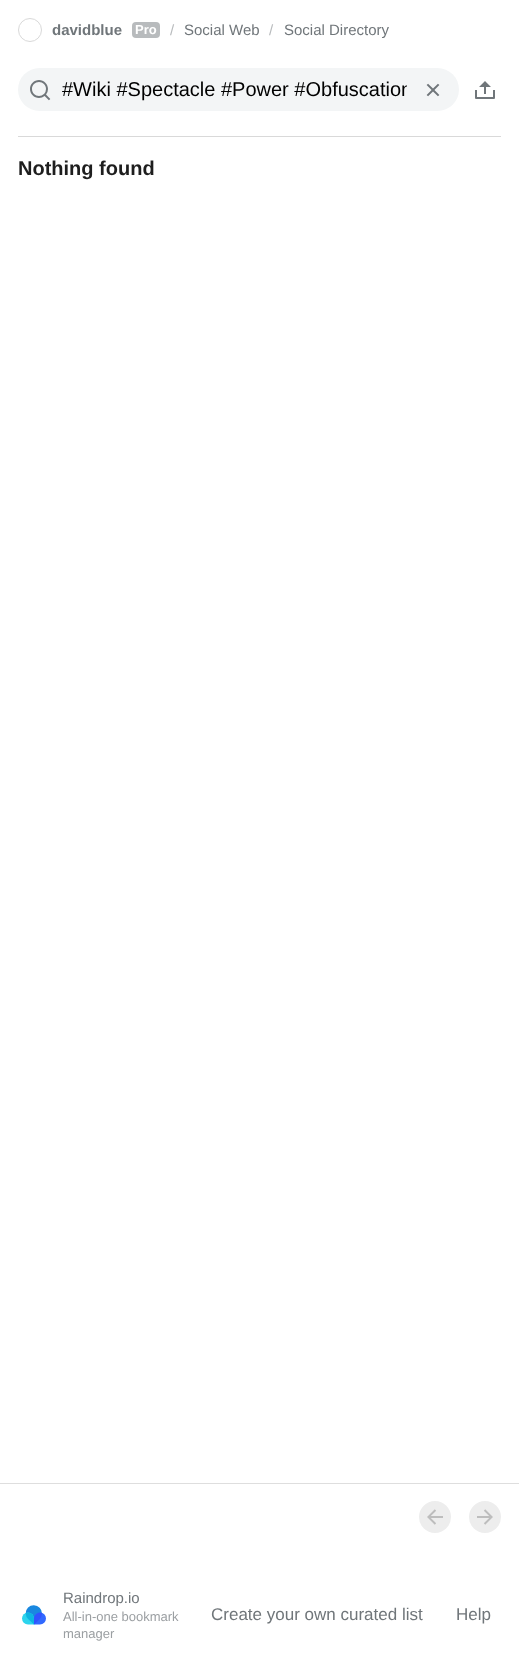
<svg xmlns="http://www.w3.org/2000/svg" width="519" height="1661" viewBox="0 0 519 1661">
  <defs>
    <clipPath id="clip1"><path d="M62 78h345v23H62z"/></clipPath>
  </defs>
  <rect width="100%" height="100%" fill="#fff"/>
  <circle cx="30" cy="30" r="11.5" fill="none" stroke="#d9d9d9"/>
  <rect x="132" y="22" width="28" height="16" rx="4" fill="#b8bbbd"/>
  <rect x="18" y="68" width="441" height="43" rx="21.5" fill="#f3f5f6"/>
  <image x="30" y="80" width="21" height="21" href="img/1.png"/>
  <image x="426" y="83" width="14" height="14" href="img/2.png"/>
  <image x="475" y="81" width="20" height="18" href="img/3.png"/>
  <path d="M18 136h483v1H18z" fill="#d9d9d9"/>
  <path d="M0 1483h519v1H0z" fill="#dedede"/>
  <circle cx="435" cy="1517" r="16" fill="#ededed"/>
  <image x="427" y="1509" width="16" height="16" href="img/4.png"/>
  <circle cx="485" cy="1517" r="16" fill="#ededed"/>
  <image x="477" y="1509" width="16" height="16" href="img/5.png"/>
  <image x="22" y="1605" width="24" height="20" href="img/6.png"/>
  <text x="52" y="35" font-family="Liberation Sans" font-size="15" font-weight="bold" fill="#70767a">davidblue</text>
  <text x="135" y="34" font-family="Liberation Sans" font-size="13" font-weight="bold" fill="#fff">Pro</text>
  <text x="170" y="35" font-family="Liberation Sans" font-size="15" fill="#b8bbbd">/</text>
  <text x="184" y="35" font-family="Liberation Sans" font-size="15" fill="#70767a">Social Web</text>
  <text x="269" y="35" font-family="Liberation Sans" font-size="15" fill="#b8bbbd">/</text>
  <text x="284" y="35" font-family="Liberation Sans" font-size="15" fill="#70767a">Social Directory</text>
  <g clip-path="url(#clip1)">
    <text x="62" y="96" font-family="Liberation Sans" font-size="20" fill="#000">#Wiki #Spectacle #Power #Obfuscation</text>
  </g>
  <text x="18" y="175" font-family="Liberation Sans" font-size="20" font-weight="bold" fill="#1e1e1e">Nothing found</text>
  <text x="63" y="1603" font-family="Liberation Sans" font-size="15" fill="#70767a">Raindrop.io</text>
  <g font-family="Liberation Sans" font-size="13" fill="#9b9fa2">
    <text x="63" y="1621">All-in-one bookmark</text>
    <text x="63" y="1638">manager</text>
  </g>
  <g font-family="Liberation Sans" font-size="17" fill="#70767a">
    <text x="211" y="1620">Create your own curated list</text>
    <text x="456" y="1620">Help</text>
  </g>
</svg>
